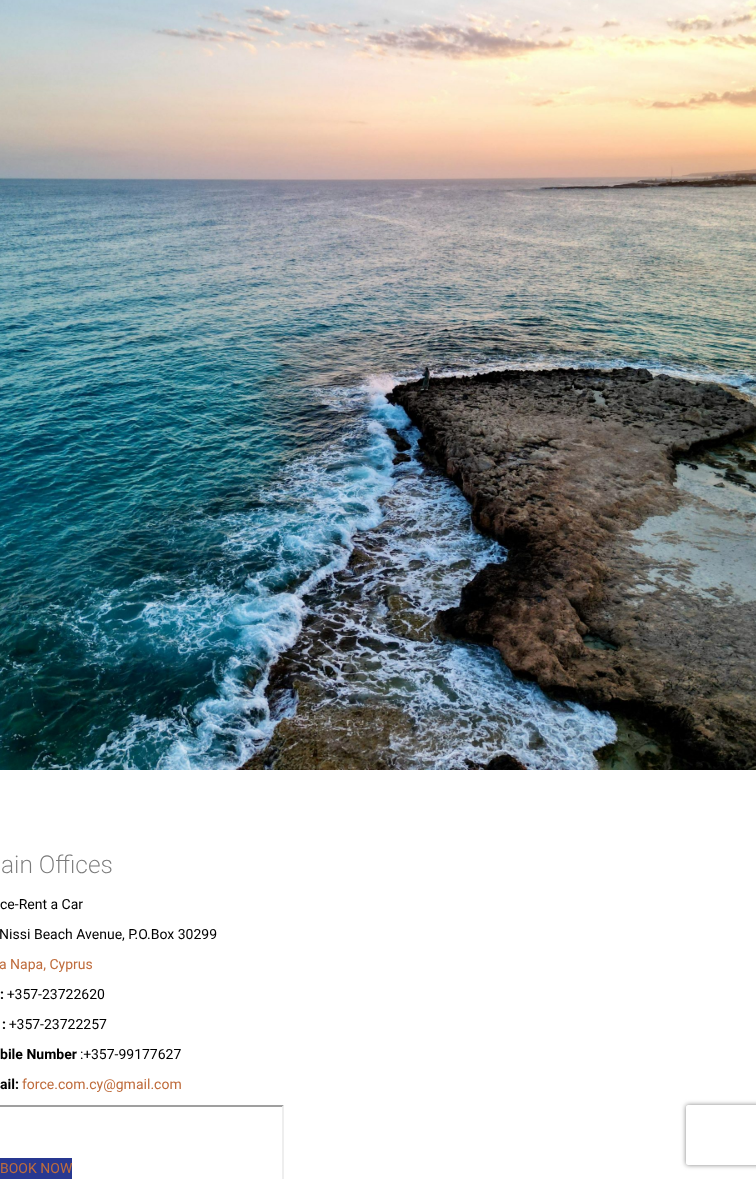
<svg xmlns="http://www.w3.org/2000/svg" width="756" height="1179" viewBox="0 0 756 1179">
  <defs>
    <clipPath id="clip1"><path d="M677 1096H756V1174H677ZM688 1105H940C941 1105 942 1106 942 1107V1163C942 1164 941 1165 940 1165H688C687 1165 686 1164 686 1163V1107C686 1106 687 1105 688 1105Z" clip-rule="evenodd"/></clipPath>
  </defs>
  <rect width="100%" height="100%" fill="#fff"/>
  <image x="0" y="0" width="756" height="770" href="img/1.png"/>
  <path d="M-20 1105H284L282 1107H-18Z" fill="#9f9f9f"/>
  <path d="M284 1105V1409L282 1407V1107Z" fill="#eee"/>
  <path d="M0 1158h72v21H0z" fill="#283891"/>
  <g clip-path="url(#clip1)">
    <rect x="686" y="1105" width="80" height="60" rx="2" fill="#808080" filter="blur(2.5px)"/>
  </g>
  <text x="1" y="873" font-family="Heebo" font-size="24.5" font-weight="200" fill="#7a7a7a">ain Offices</text>
  <g font-family="Heebo" font-size="14" fill="#000">
    <text x="0" y="909">ce-Rent a Car</text>
    <text x="-1" y="939">Nissi Beach Avenue, P.O.Box 30299</text>
  </g>
  <text x="-1" y="969" font-family="Heebo" font-size="14" fill="#bf6c3c">a Napa, Cyprus</text>
  <text x="0" y="999" font-family="Heebo" font-size="14" font-weight="bold" fill="#000">:</text>
  <text x="7" y="999" font-family="Heebo" font-size="14" fill="#000">+357-23722620</text>
  <text x="2" y="1029" font-family="Heebo" font-size="14" font-weight="bold" fill="#000">:</text>
  <text x="9" y="1029" font-family="Heebo" font-size="14" fill="#000">+357-23722257</text>
  <text x="0" y="1059" font-family="Heebo" font-size="14" font-weight="bold" fill="#000">bile Number</text>
  <text x="80" y="1059" font-family="Heebo" font-size="14" fill="#000">:+357-99177627</text>
  <text x="0" y="1089" font-family="Heebo" font-size="14" font-weight="bold" fill="#000">ail:</text>
  <g font-family="Heebo" font-size="14" fill="#bf6c3c">
    <text x="22" y="1089">force.com.cy@gmail.com</text>
    <text x="0" y="1173">BOOK NOW</text>
  </g>
</svg>
